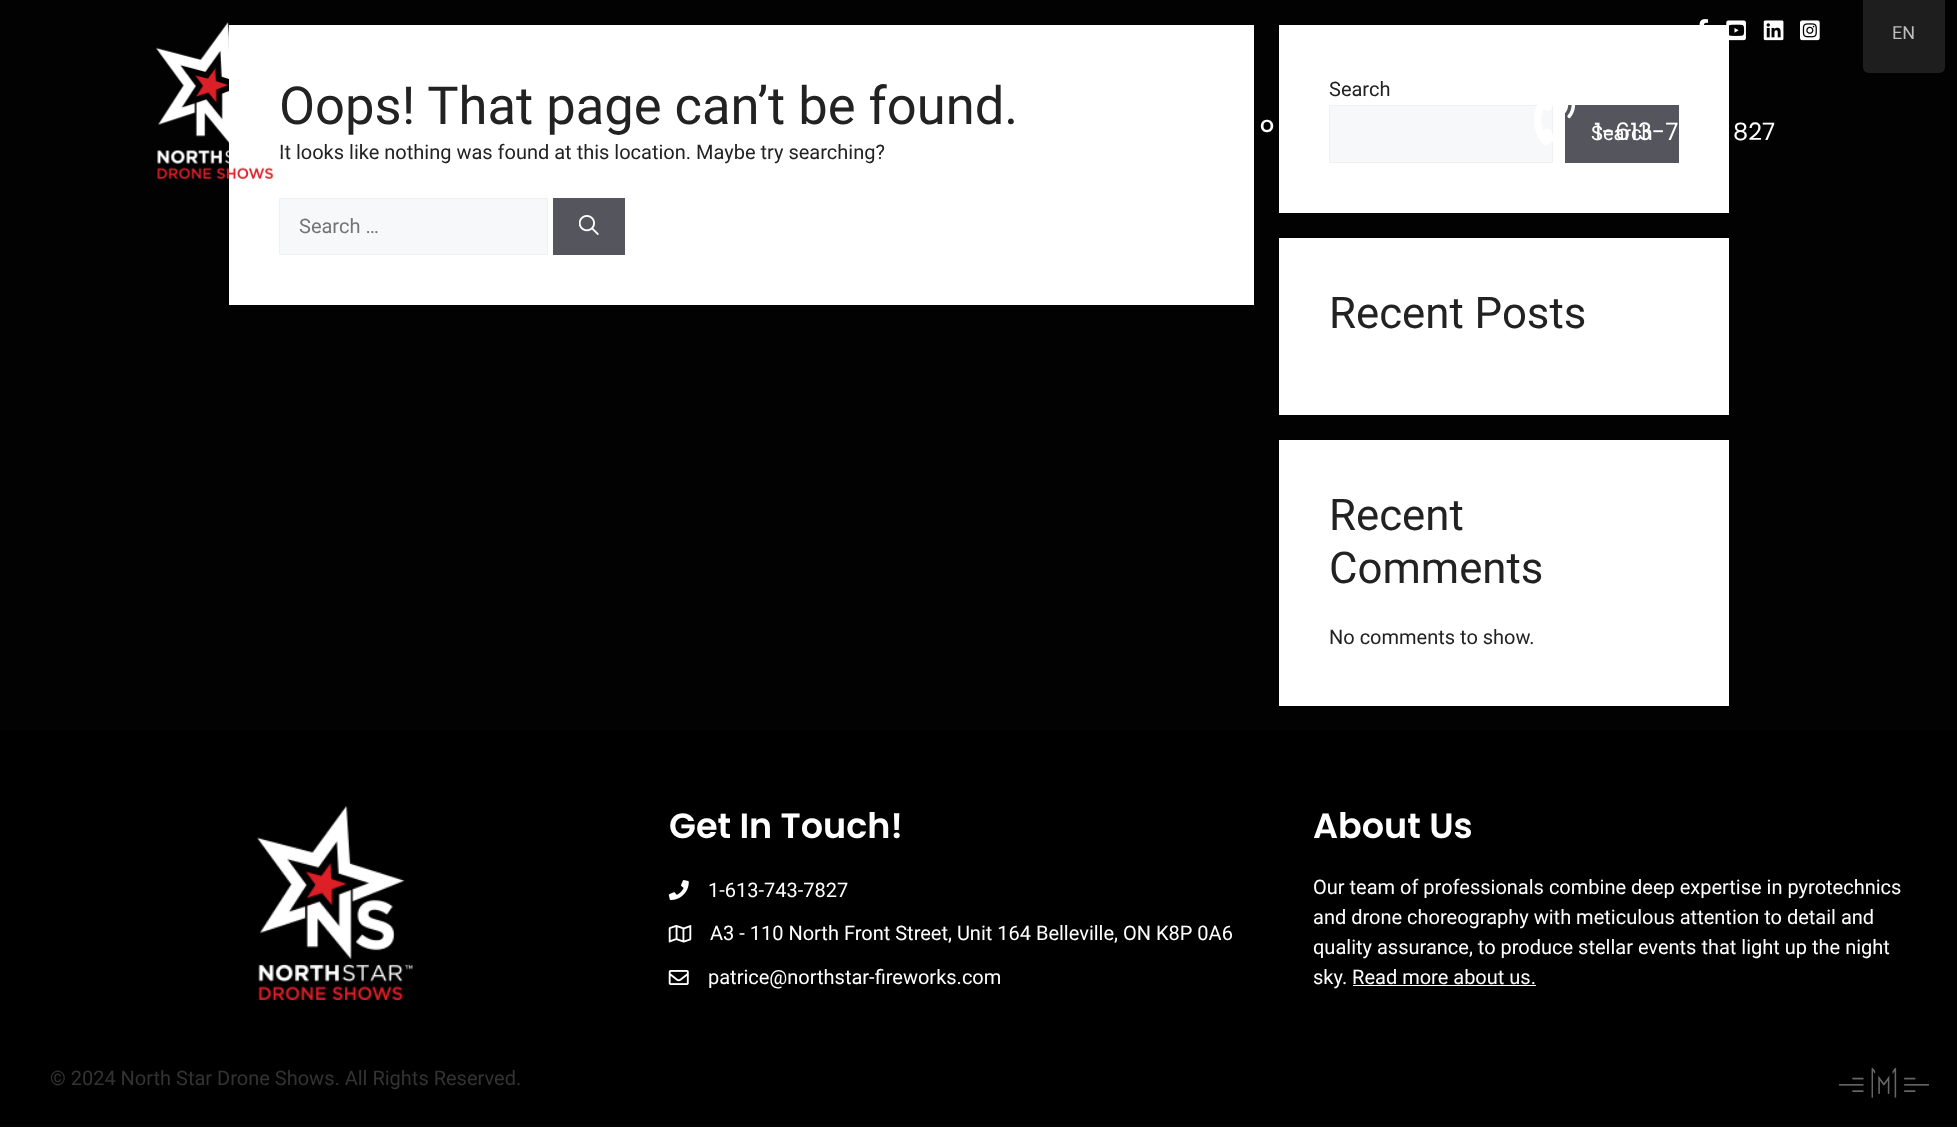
<svg xmlns="http://www.w3.org/2000/svg" width="1957" height="1127" viewBox="0 0 1957 1127">
  <rect width="100%" height="100%" fill="#020203"/>
  <path d="M1863 0H1945V67C1945 70.5 1942.5 73 1939 73H1869C1865.5 73 1863 70.5 1863 67Z" fill="#1e1e1e"/>
  <path d="M229 25h1025v280H229z" fill="#fff"/>
  <path d="M279.5 198.5h268v56H279.5z" fill="#f7f8f9" stroke="#f0f0f0"/>
  <path d="M553 198h72v57H553z" fill="#55555e"/>
  <image x="579" y="215" width="20" height="20" href="img/1.png"/>
  <path d="M1279 25h450v188H1279z" fill="#fff"/>
  <path d="M1329.5 105.5h223v57H1329.5z" fill="#f7f8f9" stroke="#f0f0f0"/>
  <path d="M1565 105h114v58H1565z" fill="#55555e"/>
  <path d="M1279 238h450v177H1279z" fill="#fff"/>
  <path d="M1279 440h450v266H1279z" fill="#fff"/>
  <image x="1699" y="19" width="10" height="6" href="img/2.png"/>
  <image x="1726" y="20" width="20" height="21" href="img/3.png"/>
  <image x="1763" y="20" width="21" height="21" href="img/4.png"/>
  <image x="1800" y="20" width="20" height="21" href="img/5.png"/>
  <image x="1534" y="105" width="42" height="41" href="img/7.png"/>
  <path d="M0 731h1957v393H0z" fill="#000"/>
  <image x="257" y="806" width="156" height="194" href="img/8.png"/>
  <image x="668" y="880" width="21" height="20" href="img/9.png"/>
  <image x="668" y="925" width="24" height="18" href="img/10.png"/>
  <image x="668" y="970" width="21" height="15" href="img/11.png"/>
  <path d="M1353 985h183v1H1353z" fill="#fff"/>
  <image x="1838" y="1067" width="91" height="31" href="img/12.png"/>
  <text x="1892" y="39" font-family="Roboto" font-size="18" fill="#bdbdbd">EN</text>
  <text x="279" y="124" font-family="Roboto" font-size="52.5" fill="#222">Oops! That page can’t be found.</text>
  <text x="279" y="159" font-family="Roboto" font-size="20" fill="#222">It looks like nothing was found at this location. Maybe try searching?</text>
  <text x="299" y="233" font-family="Roboto" font-size="20" fill="#757575">Search …</text>
  <text x="1329" y="96" font-family="Roboto" font-size="20" fill="#222">Search</text>
  <text x="1591" y="140" font-family="Roboto" font-size="20" fill="#fff">Search</text>
  <g font-family="Roboto" font-size="43.75" fill="#222">
    <text x="1329" y="328">Recent Posts</text>
    <text x="1329" y="530">Recent</text>
    <text x="1329" y="583">Comments</text>
  </g>
  <text x="1329" y="644" font-family="Roboto" font-size="20" fill="#222">No comments to show.</text>
  <image x="156" y="22" width="126" height="157" href="img/6.png"/>
  <text x="1260" y="132" font-family="Poppins" font-size="22" font-weight="500" fill="#fff">o</text>
  <g font-family="Poppins" font-size="24" fill="#fff">
    <text x="1594" y="140">1-613-7</text>
    <text x="1733" y="140">827</text>
  </g>
  <text x="669" y="838" font-family="Poppins" font-size="35" font-weight="600" fill="#fff">Get In Touch!</text>
  <g font-family="Roboto" font-size="20" fill="#fff">
    <text x="708" y="897">1-613-743-7827</text>
    <text x="710" y="940">A3 - 110 North Front Street, Unit 164 Belleville, ON K8P 0A6</text>
    <text x="708" y="984">patrice@northstar-fireworks.com</text>
  </g>
  <text x="1313" y="838" font-family="Poppins" font-size="35" font-weight="600" fill="#fff">About Us</text>
  <g font-family="Roboto" font-size="20" fill="#fff">
    <text x="1313" y="894">Our team of professionals combine deep expertise in pyrotechnics</text>
    <text x="1313" y="924">and drone choreography with meticulous attention to detail and</text>
    <text x="1313" y="954">quality assurance, to produce stellar events that light up the night</text>
    <text x="1313" y="984">sky. Read more about us.</text>
  </g>
  <text x="50" y="1085" font-family="Roboto" font-size="20" fill="#333">© 2024 North Star Drone Shows. All Rights Reserved.</text>
</svg>
